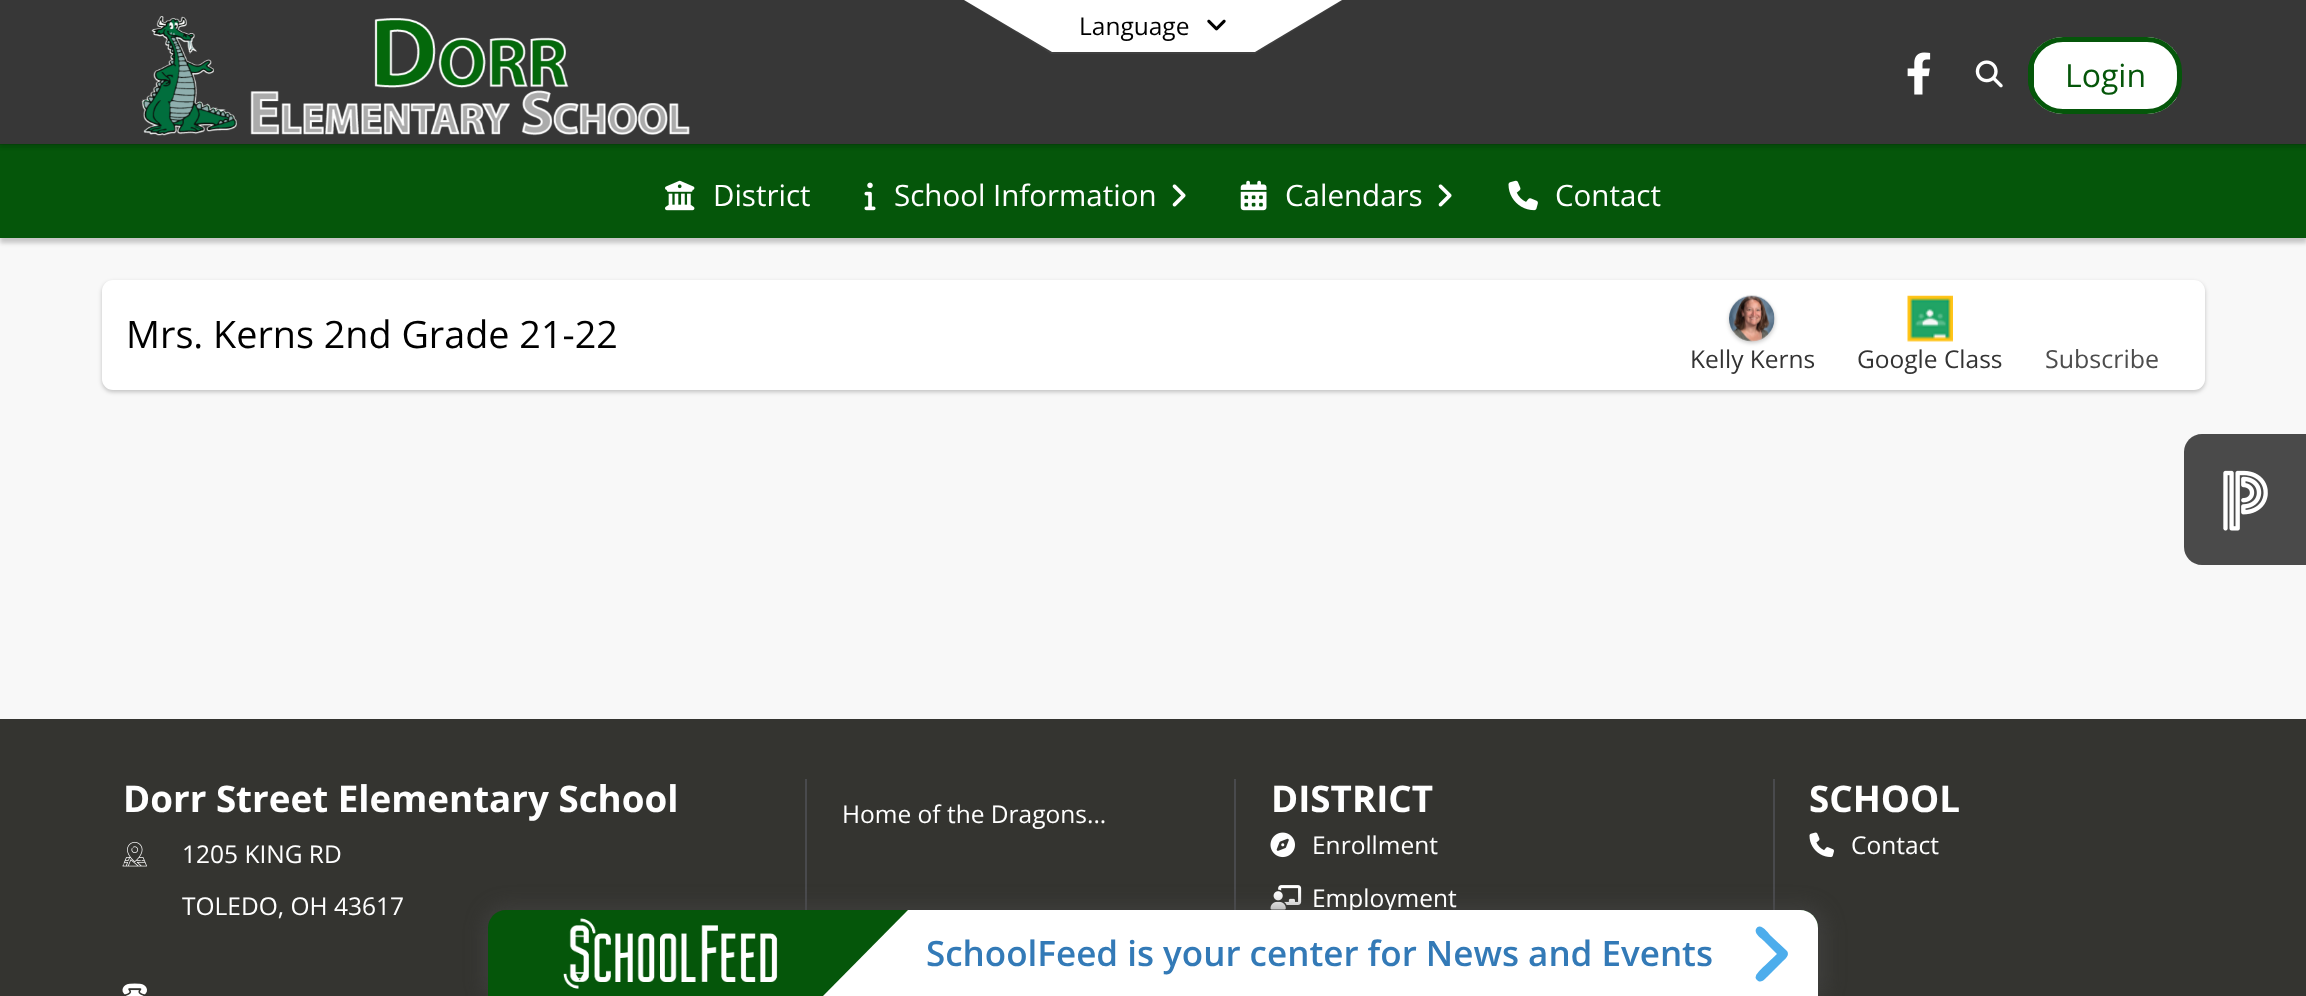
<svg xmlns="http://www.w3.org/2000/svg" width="2306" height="996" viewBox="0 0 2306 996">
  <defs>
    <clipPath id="clip1"><rect x="2028" y="37" width="154" height="77" rx="35"/></clipPath>
  </defs>
  <rect width="100%" height="100%" fill="#f8f8f8"/>
  <path d="M0 149h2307v94H0z" fill="#00000033" filter="blur(2px)"/>
  <path d="M0 144V145H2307V2H2306V144Z" fill="#054a09"/>
  <path d="M0 148h2306v90H0z" fill="#05560a"/>
  <path d="M0 145h2306v3H0z" fill="#05520a"/>
  <path d="M0 4h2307v143H0z" fill="#0000001a" filter="blur(2px)"/>
  <path d="M0 0h2306v144H0z" fill="#373737"/>
  <path d="M963 0L1051 54H1255L1344 0Z" fill="#3f3f3f"/>
  <path d="M964 0L1052 52H1255L1342 0Z" fill="#fff"/>
  <image x="1207" y="19" width="19" height="12" href="img/1.png"/>
  <image x="141" y="16" width="549" height="120" href="img/2.png"/>
  <image x="1907" y="52" width="24" height="43" href="img/3.png"/>
  <image x="1975" y="60" width="28" height="28" href="img/4.png"/>
  <g clip-path="url(#clip1)">
    <path d="M2034 37h143v77H2034z" fill="#fff"/>
    <path d="M2028 52h6v47H2028z" fill="#05560a"/>
  </g>
  <rect x="2030.5" y="39.5" width="149" height="72" rx="32.5" fill="none" stroke="#05560a" stroke-width="5"/>
  <image x="665" y="180" width="30" height="31" href="img/5.png"/>
  <image x="864" y="182" width="12" height="29" href="img/6.png"/>
  <image x="1172" y="184" width="14" height="23" href="img/7.png"/>
  <image x="1240" y="180" width="27" height="31" href="img/8.png"/>
  <image x="1438" y="184" width="14" height="23" href="img/7.png"/>
  <image x="1508" y="180" width="30" height="31" href="img/9.png"/>
  <rect x="102" y="282" width="2103" height="110" rx="11" fill="#00000038" filter="blur(2px)"/>
  <rect x="102" y="280" width="2103" height="110" rx="11" fill="#fff"/>
  <rect x="1729" y="298" width="46" height="45" rx="22.5" fill="#00000038" filter="blur(2px)"/>
  <image x="1729" y="295" width="46" height="47" href="img/10.png"/>
  <image x="1907" y="295" width="46" height="47" href="img/11.png"/>
  <path d="M2202 434H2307V565H2202C2192 565 2184 557 2184 547V452C2184 442 2192 434 2202 434Z" fill="#4a4a4a"/>
  <image x="2223" y="470" width="45" height="61" href="img/12.png"/>
  <path d="M0 719h2306v277H0z" fill="#343430"/>
  <path d="M805 779h2v131H805z" fill="#494a4d"/>
  <path d="M1234 779h2v131H1234z" fill="#494a4d"/>
  <image x="1270" y="885" width="32" height="25" href="img/17.png"/>
  <path d="M1773 779h2v131H1773z" fill="#494a4d"/>
  <rect x="483" y="905" width="1344" height="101" rx="25" fill="#48484880" filter="blur(9px)"/>
  <image x="122" y="841" width="25" height="26" href="img/14.png"/>
  <image x="122" y="983" width="25" height="13" href="img/15.png"/>
  <image x="1270" y="832" width="25" height="26" href="img/16.png"/>
  <image x="1809" y="832" width="25" height="26" href="img/18.png"/>
  <text x="1079" y="35" font-family="Open Sans" font-size="24.5" fill="#000">Language</text>
  <text x="2065" y="87" font-family="Open Sans" font-size="32" fill="#05560a">Login</text>
  <g font-family="Open Sans" font-size="29.5" fill="#fff">
    <text x="713" y="206">District</text>
    <text x="894" y="206">School Information</text>
    <text x="1285" y="206">Calendars</text>
    <text x="1555" y="206">Contact</text>
  </g>
  <text x="126" y="348" font-family="Open Sans" font-size="37.75" fill="#000">Mrs. Kerns 2nd Grade 21-22</text>
  <g font-family="Open Sans" font-size="24.5" fill="#333">
    <text x="1690" y="368">Kelly Kerns</text>
    <text x="1857" y="368">Google Class</text>
  </g>
  <text x="2045" y="368" font-family="Open Sans" font-size="25" fill="#4d4d4d">Subscribe</text>
  <text x="123" y="812" font-family="Open Sans" font-size="36.75" font-weight="bold" fill="#fff">Dorr Street Elementary School</text>
  <g font-family="Open Sans" font-size="24.5" fill="#fff">
    <text x="182" y="863">1205 KING RD</text>
    <text x="182" y="915">TOLEDO, OH 43617</text>
    <text x="842" y="823">Home of the Dragons...</text>
  </g>
  <text x="1271" y="812" font-family="Open Sans" font-size="36.75" font-weight="bold" fill="#fff">DISTRICT</text>
  <g font-family="Open Sans" font-size="24.5" fill="#fff">
    <text x="1312" y="854">Enrollment</text>
    <text x="1312" y="907">Employment</text>
  </g>
  <path d="M506 910H1800C1810 910 1818 918 1818 928V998H488V928C488 918 496 910 506 910Z" fill="#05560a"/>
  <path d="M908 910L821 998H1818V928C1818 918 1810 910 1800 910Z" fill="#fff"/>
  <path d="M1787 951C1790 955 1785 959 1783 961L1767 977C1765 979 1761 984 1757 980C1756 979 1755 978 1756 976C1756 973 1773 958 1777 954L1764 941C1761 938 1754 934 1756 929C1760 921 1769 934 1771 936Z" fill="#4dadec"/>
  <image x="563" y="918" width="215" height="71" href="img/13.png"/>
  <text x="926" y="966" font-family="Open Sans" font-size="35" font-weight="600" fill="#337ab7">SchoolFeed is your center for News and Events</text>
  <text x="1809" y="812" font-family="Open Sans" font-size="36.75" font-weight="bold" fill="#fff">SCHOOL</text>
  <text x="1851" y="854" font-family="Open Sans" font-size="24.5" fill="#fff">Contact</text>
</svg>
